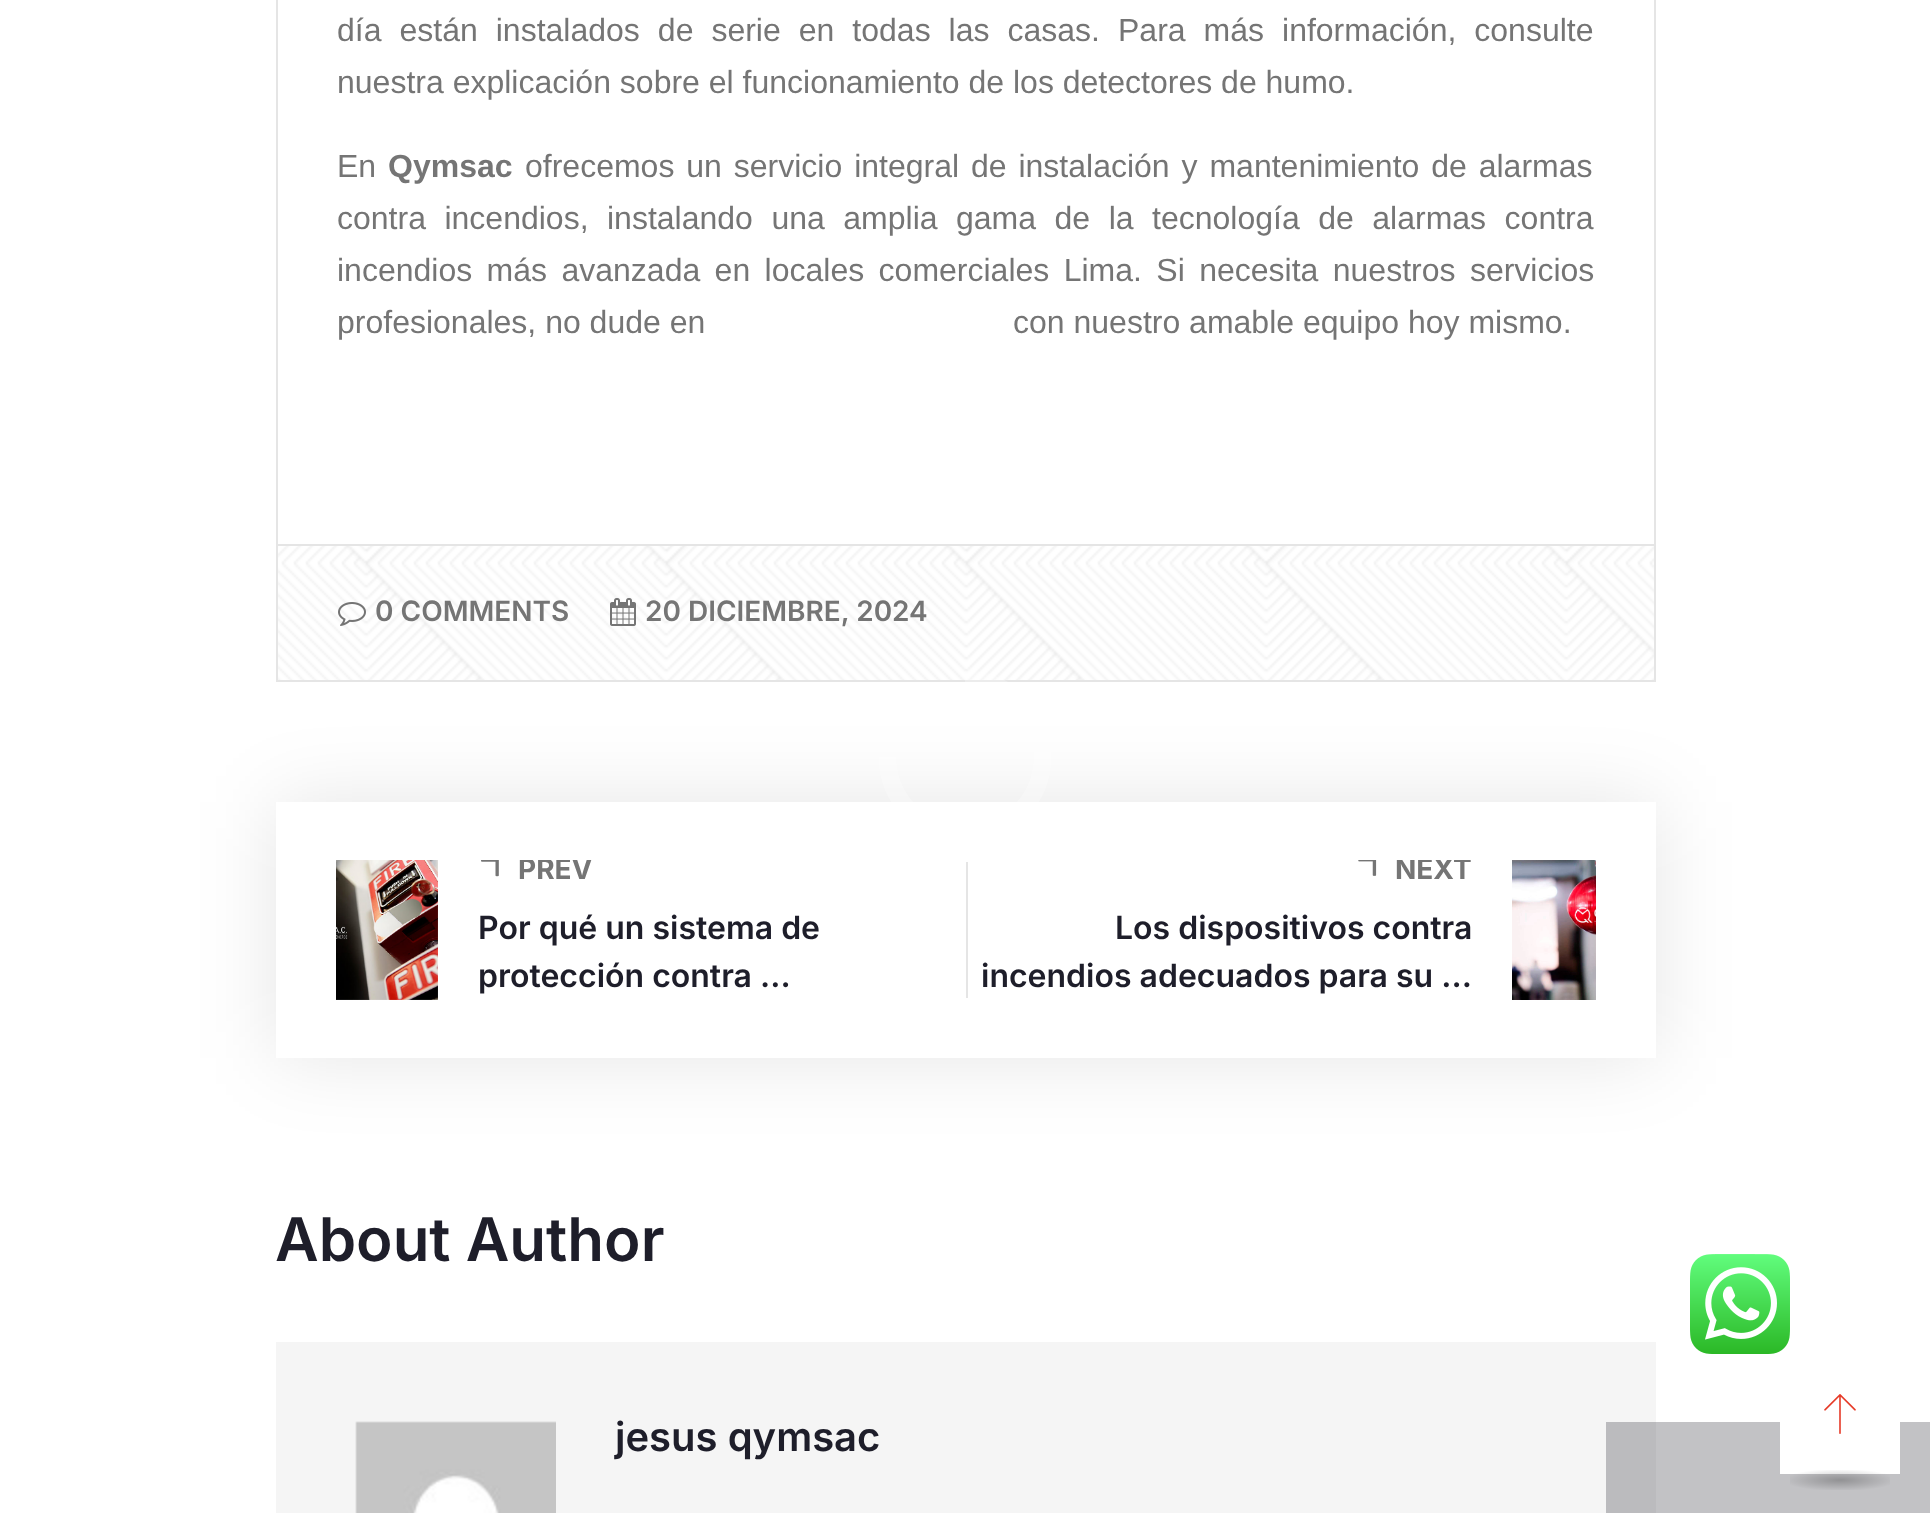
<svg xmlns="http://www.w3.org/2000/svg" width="1930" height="1513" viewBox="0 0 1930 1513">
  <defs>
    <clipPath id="clip1"><path d="M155 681H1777V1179H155ZM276 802H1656V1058H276Z" clip-rule="evenodd"/></clipPath>
    <radialGradient id="g1" gradientUnits="userSpaceOnUse" cx="0" cy="0" r="1" gradientTransform="matrix(71 0 0 14 1840 1480)"><stop offset="0" stop-color="#000" stop-opacity="0.25"/><stop offset="0.8" stop-color="#000" stop-opacity="0"/></radialGradient>
    <clipPath id="clip2"><path d="M336 860h630v140H336z"/></clipPath>
    <clipPath id="clip3"><path d="M966 860h630v140H966z"/></clipPath>
  </defs>
  <rect width="100%" height="100%" fill="#fff"/>
  <path d="M1656 1422h274v91H1656z" fill="#c2c2c5"/>
  <path d="M1654 0h2v544H1654z" fill="#e5e5e5"/>
  <path d="M276 680h1380v2H276z" fill="#e5e5e5"/>
  <path d="M276 0h2v682H276z" fill="#e5e5e5"/>
  <image x="278" y="546" width="1376" height="134" href="img/1.png"/>
  <path d="M276 544h1380v2H276z" fill="#e5e5e5"/>
  <path d="M1654 544h2v136H1654z" fill="#e5e5e5"/>
  <image x="338" y="602" width="28" height="24" href="img/2.png"/>
  <image x="610" y="598" width="26" height="28" href="img/3.png"/>
  <g clip-path="url(#clip1)">
    <path d="M276 802h1380v256H276z" fill="#0000001a" filter="blur(40px)"/>
  </g>
  <image x="336" y="860" width="102" height="140" href="img/4.png"/>
  <image x="481" y="860" width="18" height="17" href="img/5.png"/>
  <path d="M966 862h2v136H966z" fill="#e5e5e5"/>
  <image x="1358" y="860" width="19" height="16" href="img/6.png"/>
  <image x="1512" y="860" width="84" height="140" href="img/7.png"/>
  <path d="M276 1342h1380v171H276z" fill="#f5f5f5"/>
  <path d="M1606 1422h50v91H1606z" fill="#bbbbbe"/>
  <image x="355" y="1421" width="201" height="92" href="img/8.png"/>
  <path d="M965 679.5C1008 679.5 1042.5 714 1042.5 757C1042.5 800 1008 834.5 965 834.5C922 834.5 887.5 800 887.5 757" fill="none" stroke="#ffffff45" stroke-width="17.8"/>
  <path d="M1780 1422h120v52H1780z" fill="#fff"/>
  <image x="1824" y="1394" width="32" height="40" href="img/9.png"/>
  <path d="M1790 1470h100v20H1790z" fill="url(#g1)"/>
  <image x="1690" y="1254" width="100" height="100" href="img/10.png"/>
  <g font-family="Liberation Sans" font-size="32" fill="#757575">
    <text x="337" y="41" word-spacing="9.1">día están instalados de serie en todas las casas. Para más información, consulte</text>
    <text x="337" y="93">nuestra explicación sobre el funcionamiento de los detectores de humo.</text>
    <text x="337" y="177">En</text>
  </g>
  <text x="388" y="177" font-family="Liberation Sans" font-size="32" font-weight="bold" fill="#757575">Qymsac</text>
  <g font-family="Liberation Sans" font-size="32" fill="#757575">
    <text x="525" y="177" word-spacing="3">ofrecemos un servicio integral de instalación y mantenimiento de alarmas</text>
    <text x="337" y="229" word-spacing="9.6">contra incendios, instalando una amplia gama de la tecnología de alarmas contra</text>
    <text x="337" y="281" word-spacing="5.5">incendios más avanzada en locales comerciales Lima. Si necesita nuestros servicios</text>
    <text x="337" y="333">profesionales, no dude en</text>
    <text x="1013" y="333">con nuestro amable equipo hoy mismo.</text>
  </g>
  <g font-family="Inter" font-size="28" font-weight="600" fill="#757575">
    <text x="375" y="621">0 COMMENTS</text>
    <text x="645" y="621">20 DICIEMBRE, 2024</text>
  </g>
  <g clip-path="url(#clip2)">
    <text x="518" y="879" font-family="Inter" font-size="28" font-weight="bold" fill="#757575">PREV</text>
  </g>
  <g font-family="Inter" font-size="32" font-weight="600" fill="#1e1e2a">
    <text x="478" y="939">Por qué un sistema de</text>
    <text x="478" y="987">protección contra ...</text>
  </g>
  <g clip-path="url(#clip3)">
    <text x="1395" y="879" font-family="Inter" font-size="28" font-weight="bold" fill="#757575">NEXT</text>
  </g>
  <g font-family="Inter" font-size="32" font-weight="600" fill="#1e1e2a">
    <text x="1115" y="939">Los dispositivos contra</text>
    <text x="981" y="987">incendios adecuados para su ...</text>
  </g>
  <text x="275" y="1261" font-family="Inter" font-size="60" font-weight="600" fill="#1e1e2a">About Author</text>
  <text x="615" y="1451" font-family="Inter" font-size="40" font-weight="600" fill="#1e1e2a">jesus qymsac</text>
</svg>
